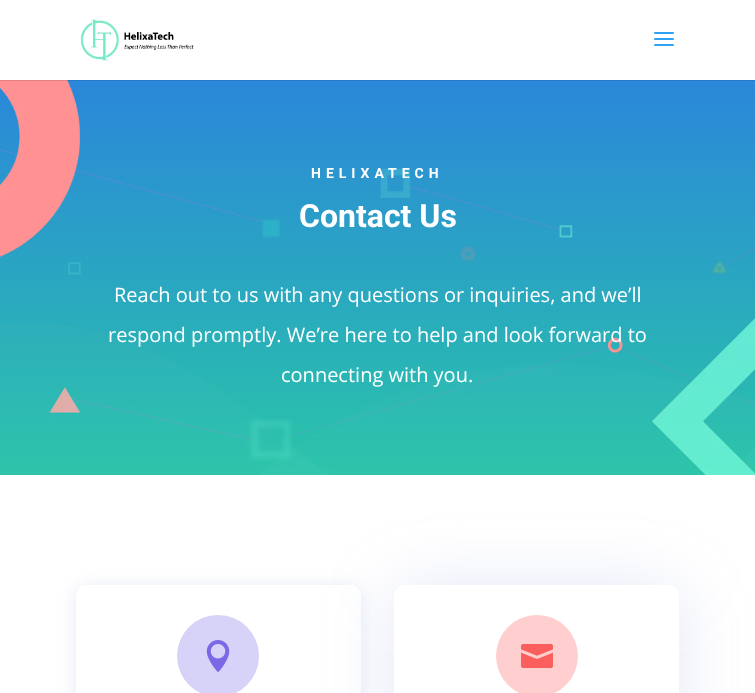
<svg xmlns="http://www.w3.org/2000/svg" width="755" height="693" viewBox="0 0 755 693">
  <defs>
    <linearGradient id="g1" gradientUnits="userSpaceOnUse" x1="378" y1="79" x2="378" y2="475"><stop offset="0" stop-color="#2b87da"/><stop offset="0.99" stop-color="#29c4a9"/></linearGradient>
  </defs>
  <rect width="100%" height="100%" fill="#fff"/>
  <path d="M0 80h755v395H0z" fill="url(#g1)"/>
  <image x="0" y="80" width="755" height="395" href="img/3.png"/>
  <path d="M0 80h755v1H0z" fill="#0000001a"/>
  <image x="80" y="19" width="114" height="42" href="img/1.png"/>
  <image x="654" y="32" width="20" height="14" href="img/2.png"/>
  <rect x="76" y="587" width="285" height="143" rx="10" fill="#6e82d02e" filter="blur(9px)"/>
  <rect x="76" y="585" width="285" height="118" rx="10" fill="#fff"/>
  <circle cx="218" cy="656" r="41" fill="#d7d2f8"/>
  <image x="206" y="640" width="24" height="32" href="img/4.png"/>
  <rect x="394" y="587" width="285" height="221" rx="10" fill="#6e82d02e" filter="blur(35px)"/>
  <rect x="394" y="585" width="285" height="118" rx="10" fill="#fff"/>
  <circle cx="537" cy="656" r="41" fill="#fecfce"/>
  <image x="521" y="644" width="32" height="24" href="img/5.png"/>
  <text x="311" y="178" font-family="Roboto" font-size="14" font-weight="bold" letter-spacing="5" fill="#fff">HELIXATECH</text>
  <text x="299" y="227" font-family="Roboto" font-size="32" font-weight="bold" fill="#fff">Contact Us</text>
  <g font-family="Open Sans" font-size="20" fill="#fff">
    <text x="114" y="302">Reach out to us with any questions or inquiries, and we’ll</text>
    <text x="108" y="342">respond promptly. We’re here to help and look forward to</text>
    <text x="281" y="382">connecting with you.</text>
  </g>
</svg>
